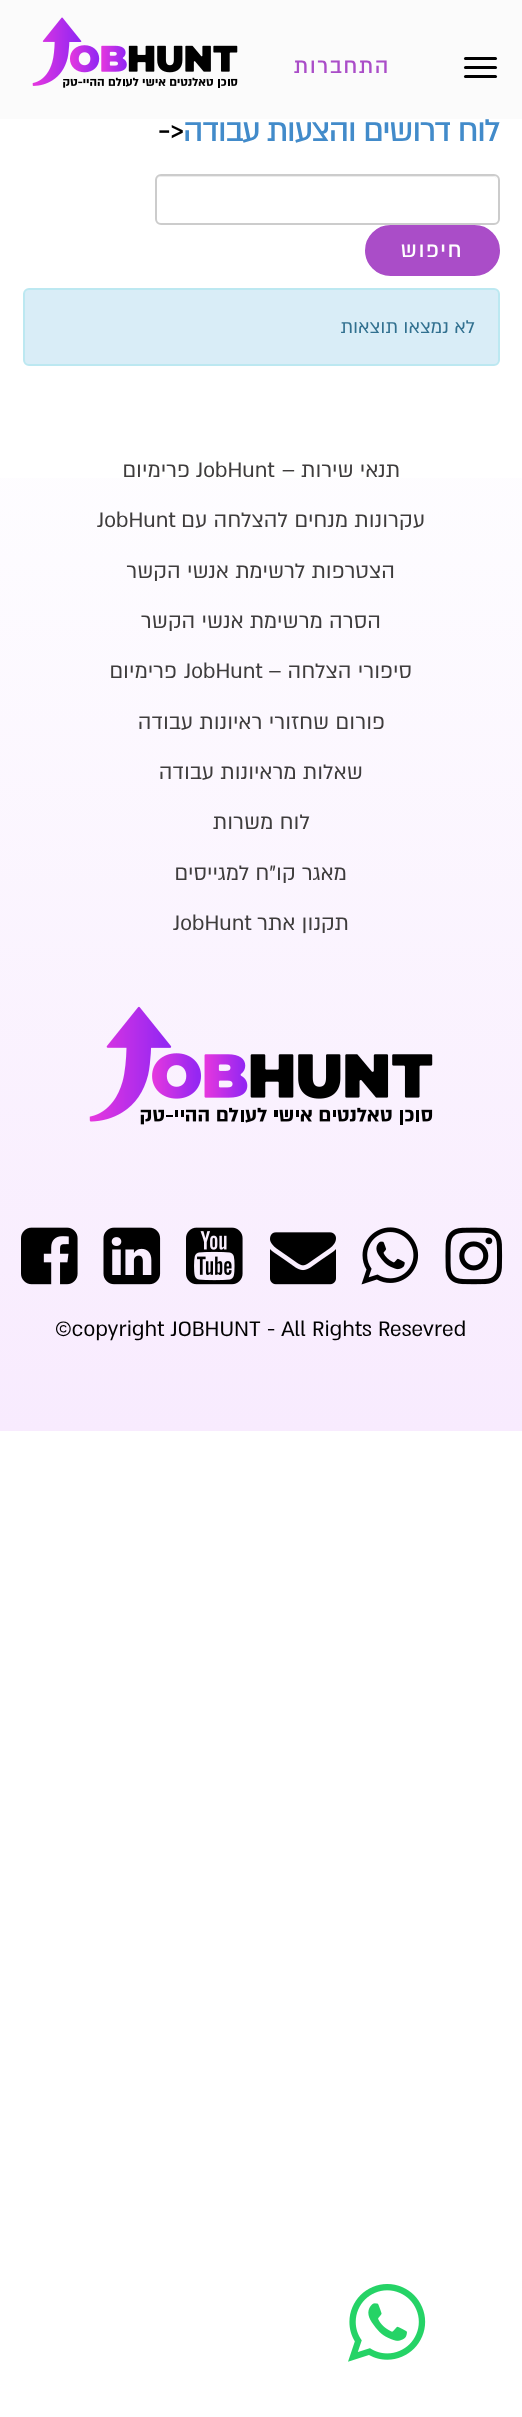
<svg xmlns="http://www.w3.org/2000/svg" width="522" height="2417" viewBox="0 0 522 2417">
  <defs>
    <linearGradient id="g1" gradientUnits="userSpaceOnUse" x1="261" y1="396" x2="261" y2="1431"><stop offset="0" stop-color="#fefeff"/><stop offset="1" stop-color="#f8ebfe"/></linearGradient>
  </defs>
  <rect width="100%" height="100%" fill="#fff"/>
  <path d="M0 0h522v119H0z" fill="#fbfbfb"/>
  <rect x="464" y="57" width="33" height="3" rx="1.5" fill="#000"/>
  <rect x="464" y="66" width="33" height="3" rx="1.5" fill="#000"/>
  <rect x="464" y="75" width="33" height="3" rx="1.5" fill="#000"/>
  <image x="32" y="17" width="206" height="71" href="img/1.png"/>
  <path d="M160 177H494C496 177 498 179 498 182C498 179 496 176 493 176H161C158 176 156 179 156 182C156 179 158 177 160 177Z" fill="#ececec"/>
  <rect x="156" y="175" width="343" height="49" rx="5" fill="none" stroke="#ccc" stroke-width="2"/>
  <rect x="366" y="226" width="133" height="49" rx="24.5" fill="#aa4dc8" stroke="#aa4dc8" stroke-width="2"/>
  <rect x="24" y="289" width="475" height="76" rx="5" fill="#d9edf7" stroke="#bce8f1" stroke-width="2"/>
  <path d="M0 478h522v953H0z" fill="url(#g1)"/>
  <image x="89" y="1006" width="344" height="119" href="img/2.png"/>
  <image x="445" y="1227" width="58" height="58" href="img/3.png"/>
  <image x="361" y="1227" width="58" height="58" href="img/4.png"/>
  <image x="270" y="1232" width="66" height="53" href="img/5.png"/>
  <image x="186" y="1227" width="57" height="58" href="img/6.png"/>
  <image x="103" y="1227" width="58" height="58" href="img/7.png"/>
  <image x="21" y="1227" width="57" height="58" href="img/8.png"/>
  <image x="348" y="2284" width="78" height="78" href="img/9.png"/>
  <text x="390" y="73" font-family="'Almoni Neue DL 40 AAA'" font-size="24" font-weight="500" letter-spacing="1.5" direction="rtl" fill="#aa4dc8">התחברות</text>
  <text x="499" y="141" font-family="'Almoni Neue DL 40 AAA'" font-size="36" font-weight="500" letter-spacing="-1.5" direction="rtl" fill="#428bca">לוח דרושים והצעות עבודה</text>
  <text x="158" y="141" font-family="'Almoni Neue DL 40 AAA'" font-size="36" font-weight="500" letter-spacing="-1.5" fill="#000">-&gt;</text>
  <text x="463" y="257" font-family="'Almoni Neue DL 40 AAA'" font-size="24" font-weight="500" letter-spacing="1.5" direction="rtl" fill="#fff">חיפוש</text>
  <text x="475" y="333" font-family="'Almoni Neue DL 40 AAA'" font-size="21" direction="rtl" fill="#31708f">לא נמצאו תוצאות</text>
  <text x="400" y="477" font-family="'Almoni Neue DL 40 AAA'" font-size="24" direction="rtl" fill="#3e3c3c">תנאי שירות –</text>
  <text x="196" y="477" font-family="'Almoni Neue DL 40 AAA'" font-size="24" fill="#3e3c3c">JobHunt</text>
  <g font-family="'Almoni Neue DL 40 AAA'" font-size="24" direction="rtl" fill="#3e3c3c">
    <text x="190" y="477">פרימיום</text>
    <text x="425" y="527">עקרונות מנחים להצלחה עם</text>
  </g>
  <text x="97" y="527" font-family="'Almoni Neue DL 40 AAA'" font-size="24" fill="#3e3c3c">JobHunt</text>
  <g font-family="'Almoni Neue DL 40 AAA'" font-size="24" direction="rtl" fill="#3e3c3c">
    <text x="395" y="578">הצטרפות לרשימת אנשי הקשר</text>
    <text x="381" y="628">הסרה מרשימת אנשי הקשר</text>
    <text x="412" y="678">סיפורי הצלחה –</text>
  </g>
  <text x="184" y="678" font-family="'Almoni Neue DL 40 AAA'" font-size="24" fill="#3e3c3c">JobHunt</text>
  <g font-family="'Almoni Neue DL 40 AAA'" font-size="24" direction="rtl" fill="#3e3c3c">
    <text x="177" y="678">פרימיום</text>
    <text x="385" y="729">פורום שחזורי ראיונות עבודה</text>
    <text x="363" y="779">שאלות מראיונות עבודה</text>
    <text x="310" y="829">לוח משרות</text>
    <text x="347" y="880">מאגר קו”ח למגייסים</text>
    <text x="349" y="930">תקנון אתר</text>
  </g>
  <text x="173" y="930" font-family="'Almoni Neue DL 40 AAA'" font-size="24" fill="#3e3c3c">JobHunt</text>
  <text x="55" y="1336" font-family="'Almoni Neue DL 40 AAA'" font-size="24" fill="#000">©copyright JOBHUNT - All Rights Resevred</text>
</svg>
